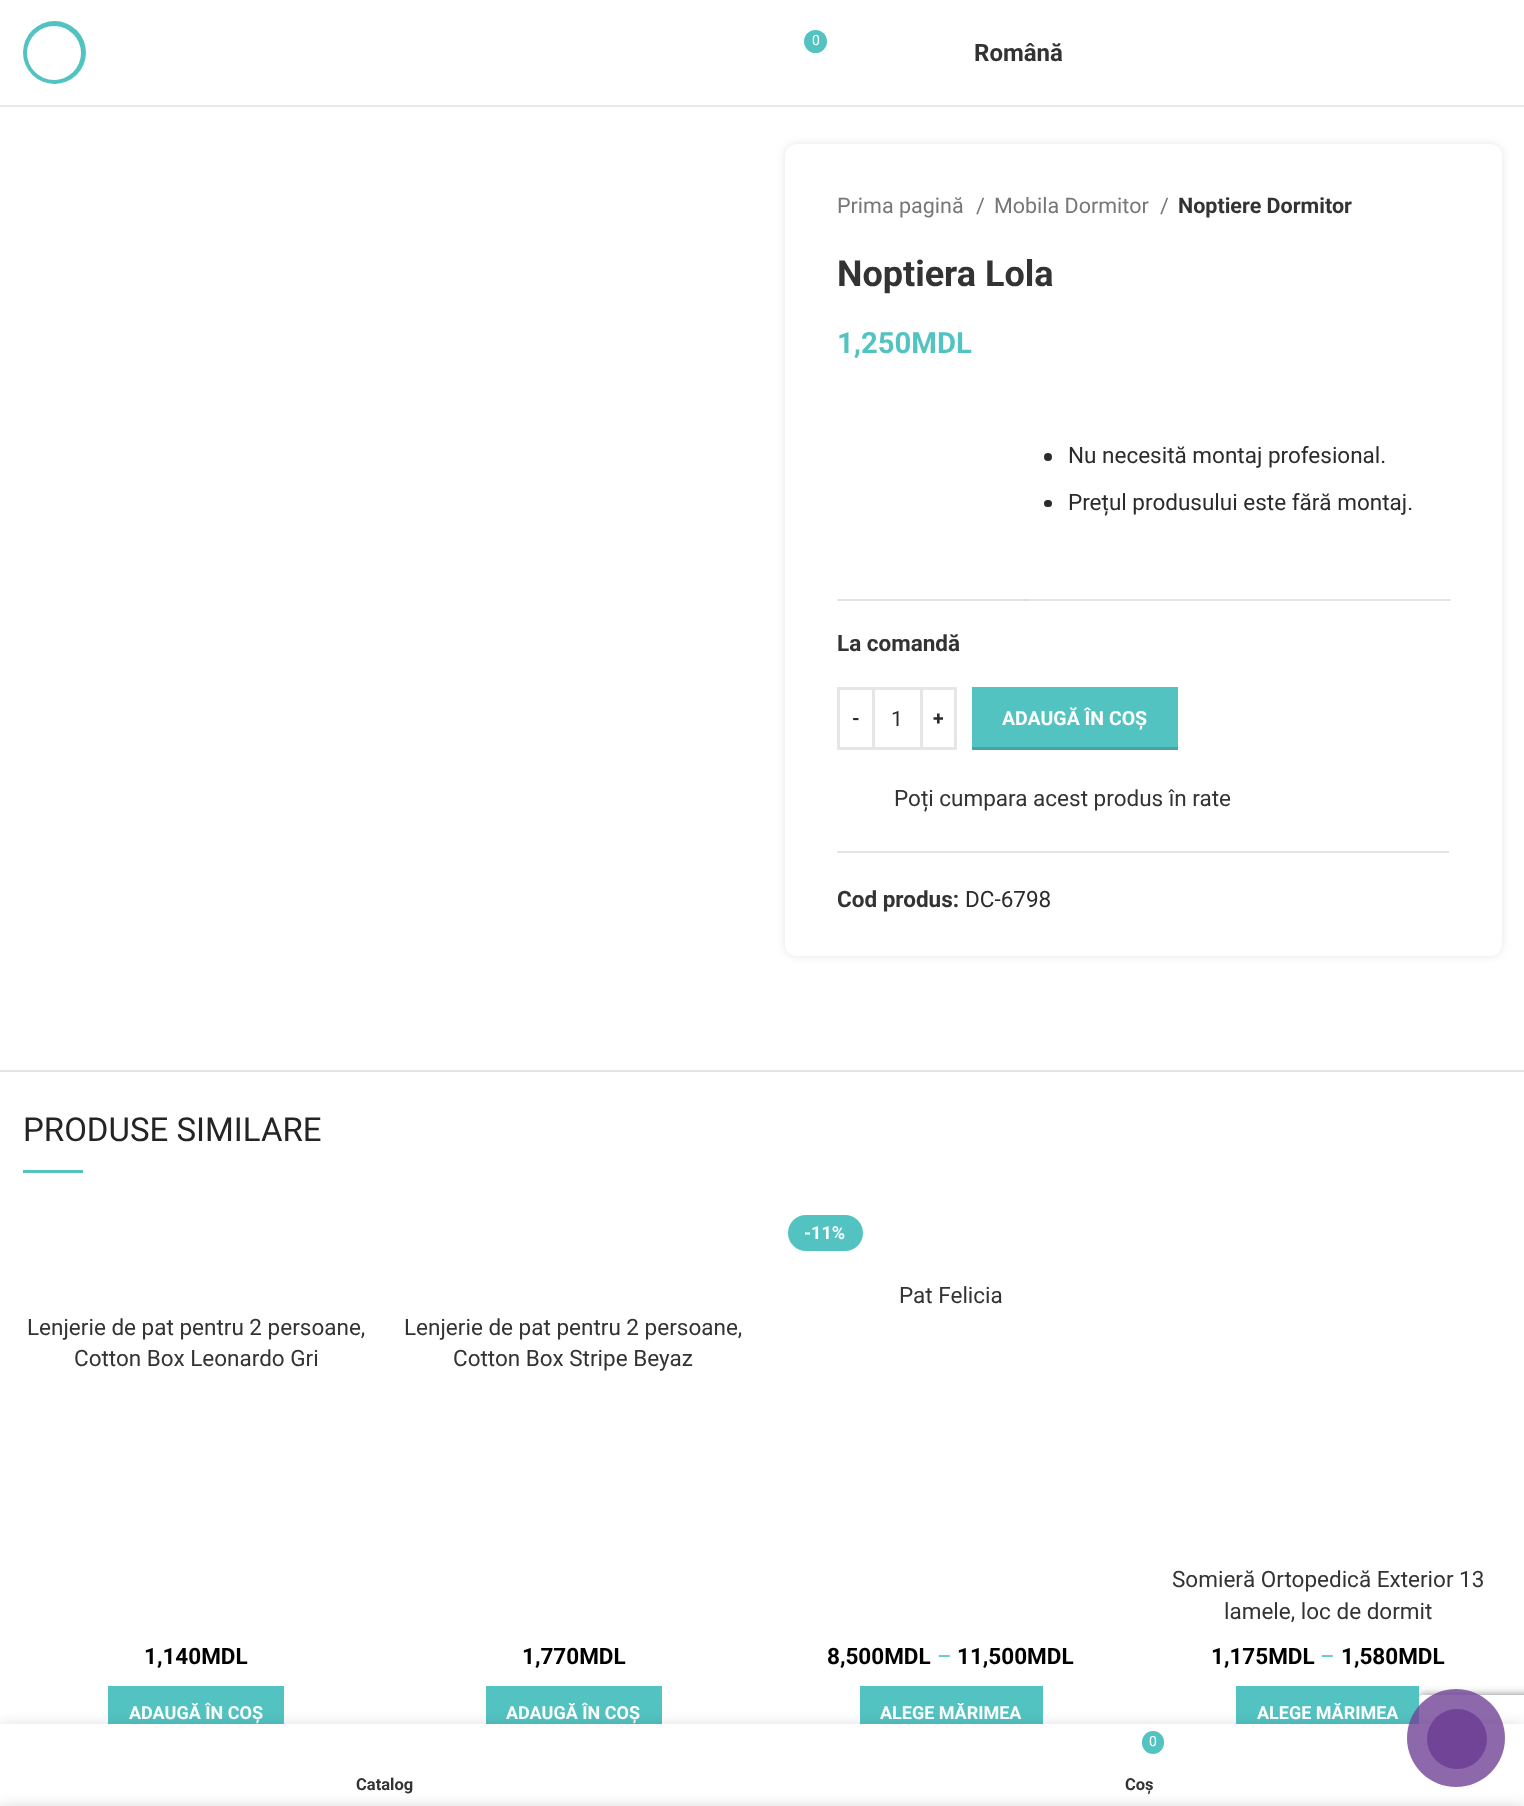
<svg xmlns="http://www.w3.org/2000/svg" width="1524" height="1806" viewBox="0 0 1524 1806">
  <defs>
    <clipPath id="clip1"><path d="M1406 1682H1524V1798H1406ZM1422 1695H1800C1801.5 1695 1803 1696.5 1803 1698V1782C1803 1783.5 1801.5 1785 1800 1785H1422C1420.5 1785 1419 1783.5 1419 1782V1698C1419 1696.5 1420.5 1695 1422 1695Z" clip-rule="evenodd"/></clipPath>
  </defs>
  <rect width="100%" height="100%" fill="#fff"/>
  <path d="M0 105h1524v2H0z" fill="#e8e8e8"/>
  <circle cx="54.5" cy="52.5" r="31.5" fill="#53c3c2"/>
  <circle cx="54" cy="53" r="27" fill="#fff"/>
  <circle cx="815.5" cy="41.5" r="11.5" fill="#53c3c2"/>
  <rect x="785" y="144" width="717" height="812" rx="12" fill="#0000001a" filter="blur(4px)"/>
  <rect x="785" y="144" width="717" height="812" rx="12" fill="#fff"/>
  <path d="M837 599h189v2H837z" fill="#e3e3e3"/>
  <path d="M1025 599h426v2H1025z" fill="#e4e4e4"/>
  <path d="M1025 599h1v2H1025z" fill="#cbcbcb"/>
  <circle cx="1048" cy="457" r="4" fill="#2b2b2b"/>
  <rect x="1044" y="500" width="8" height="7" rx="3.5" fill="#2b2b2b"/>
  <path d="M838.5 688.5h35v60H838.5z" fill="none" stroke="#e6e6e6" stroke-width="3"/>
  <path d="M875 687h45v3H875z" fill="#e6e6e6"/>
  <path d="M875 747h45v3H875z" fill="#e6e6e6"/>
  <path d="M921.5 688.5h34v60H921.5z" fill="none" stroke="#e6e6e6" stroke-width="3"/>
  <path d="M972 687h206v60H972z" fill="#53c3c2"/>
  <path d="M972 747h206v3H972z" fill="#47a6a5"/>
  <path d="M837 851h612v2H837z" fill="#e4e4e4"/>
  <path d="M0 1070h1524v2H0z" fill="#e4e4e4"/>
  <path d="M23 1170h60v3H23z" fill="#53c3c2"/>
  <path d="M108 1686h176v38H108z" fill="#53c3c2"/>
  <path d="M486 1686h176v38H486z" fill="#53c3c2"/>
  <rect x="788" y="1215" width="75" height="36" rx="18" fill="#53c3c2"/>
  <path d="M860 1686h183v38H860z" fill="#53c3c2"/>
  <g clip-path="url(#clip1)">
    <rect x="1419" y="1695" width="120" height="90" rx="3" fill="#808080" filter="blur(4px)"/>
  </g>
  <path d="M1236 1686h183v38H1236z" fill="#53c3c2"/>
  <text x="812" y="45" font-family="Roboto" font-size="14" fill="#fff">0</text>
  <text x="974" y="61" font-family="Roboto" font-size="24" font-weight="bold" fill="#333">Română</text>
  <g font-family="Roboto" font-size="21.5" fill="#777">
    <text x="837" y="213">Prima pagină</text>
    <text x="976" y="213">/</text>
    <text x="994" y="213">Mobila Dormitor</text>
    <text x="1160" y="213">/</text>
  </g>
  <text x="1178" y="213" font-family="Roboto" font-size="21.5" font-weight="bold" fill="#333">Noptiere Dormitor</text>
  <text x="837" y="286" font-family="Roboto" font-size="36" font-weight="bold" fill="#333">Noptiera Lola</text>
  <text x="837" y="353" font-family="Roboto" font-size="29.25" font-weight="bold" fill="#53c3c2">1,250MDL</text>
  <g font-family="Roboto" font-size="22.5" fill="#2b2b2b">
    <text x="1068" y="463">Nu necesită montaj profesional.</text>
    <text x="1068" y="510">Prețul produsului este fără montaj.</text>
  </g>
  <text x="837" y="651" font-family="Roboto" font-size="22.5" font-weight="bold" fill="#333">La comandă</text>
  <text x="852" y="725" font-family="Roboto" font-size="19.5" font-weight="bold" fill="#2b2b2b">-</text>
  <text x="891" y="726" font-family="Roboto" font-size="21" fill="#2b2b2b">1</text>
  <text x="933" y="725" font-family="Roboto" font-size="19.5" font-weight="bold" fill="#2b2b2b">+</text>
  <text x="1002" y="725" font-family="Roboto" font-size="19.5" font-weight="bold" fill="#fff">ADAUGĂ ÎN COȘ</text>
  <text x="894" y="806" font-family="Roboto" font-size="22.5" fill="#333">Poți cumpara acest produs în rate</text>
  <text x="837" y="907" font-family="Roboto" font-size="22.5" font-weight="bold" fill="#333">Cod produs:</text>
  <text x="965" y="907" font-family="Roboto" font-size="22.5" fill="#2b2b2b">DC-6798</text>
  <text x="23" y="1141" font-family="Roboto" font-size="33" fill="#242424">PRODUSE SIMILARE</text>
  <g font-family="Roboto" font-size="22.5" fill="#333">
    <text x="27" y="1335">Lenjerie de pat pentru 2 persoane,</text>
    <text x="74" y="1366">Cotton Box Leonardo Gri</text>
  </g>
  <text x="144" y="1664" font-family="Roboto" font-size="22.5" font-weight="bold" fill="#000">1,140MDL</text>
  <text x="129" y="1719" font-family="Roboto" font-size="18" font-weight="bold" fill="#fff">ADAUGĂ ÎN COȘ</text>
  <g font-family="Roboto" font-size="22.5" fill="#333">
    <text x="404" y="1335">Lenjerie de pat pentru 2 persoane,</text>
    <text x="453" y="1366">Cotton Box Stripe Beyaz</text>
  </g>
  <text x="522" y="1664" font-family="Roboto" font-size="22.5" font-weight="bold" fill="#000">1,770MDL</text>
  <g font-family="Roboto" font-size="18" font-weight="bold" fill="#fff">
    <text x="506" y="1719">ADAUGĂ ÎN COȘ</text>
    <text x="804" y="1239">-11%</text>
  </g>
  <text x="899" y="1303" font-family="Roboto" font-size="22.5" fill="#333">Pat Felicia</text>
  <text x="827" y="1664" font-family="Roboto" font-size="22.5" font-weight="bold" fill="#000">8,500MDL</text>
  <text x="937" y="1664" font-family="Roboto" font-size="22.5" fill="#53c3c2">–</text>
  <text x="957" y="1664" font-family="Roboto" font-size="22.5" font-weight="bold" fill="#000">11,500MDL</text>
  <text x="880" y="1719" font-family="Roboto" font-size="18" font-weight="bold" fill="#fff">ALEGE MĂRIMEA</text>
  <g font-family="Roboto" font-size="22.5" fill="#333">
    <text x="1172" y="1587">Somieră Ortopedică Exterior 13</text>
    <text x="1224" y="1619">lamele, loc de dormit</text>
  </g>
  <text x="1211" y="1664" font-family="Roboto" font-size="22.5" font-weight="bold" fill="#000">1,175MDL</text>
  <text x="1320" y="1664" font-family="Roboto" font-size="22.5" fill="#53c3c2">–</text>
  <text x="1341" y="1664" font-family="Roboto" font-size="22.5" font-weight="bold" fill="#000">1,580MDL</text>
  <text x="1257" y="1719" font-family="Roboto" font-size="18" font-weight="bold" fill="#fff">ALEGE MĂRIMEA</text>
  <path d="M1318.5 1722C1313.5 1717 1313.5 1709 1318.5 1704" fill="none" stroke="#53c3c2" stroke-width="1.5"/>
  <path d="M0 1724h1524v82H0z" fill="#0000001f" filter="blur(7px)"/>
  <path d="M0 1724h1524v82H0z" fill="#fff"/>
  <text x="356" y="1790" font-family="Roboto" font-size="16.5" font-weight="bold" fill="#333">Catalog</text>
  <rect x="1142" y="1731" width="22" height="23" rx="11" fill="#53c3c2"/>
  <text x="1149" y="1746" font-family="Roboto" font-size="14" fill="#fff">0</text>
  <text x="1125" y="1790" font-family="Roboto" font-size="16.5" font-weight="bold" fill="#333">Coș</text>
  <path d="M0 1806h1524v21H0z" fill="#00000024" filter="blur(7px)"/>
  <circle cx="1456" cy="1738" r="49" fill="#714497cc"/>
  <circle cx="1457" cy="1739" r="30" fill="#714497"/>
</svg>
